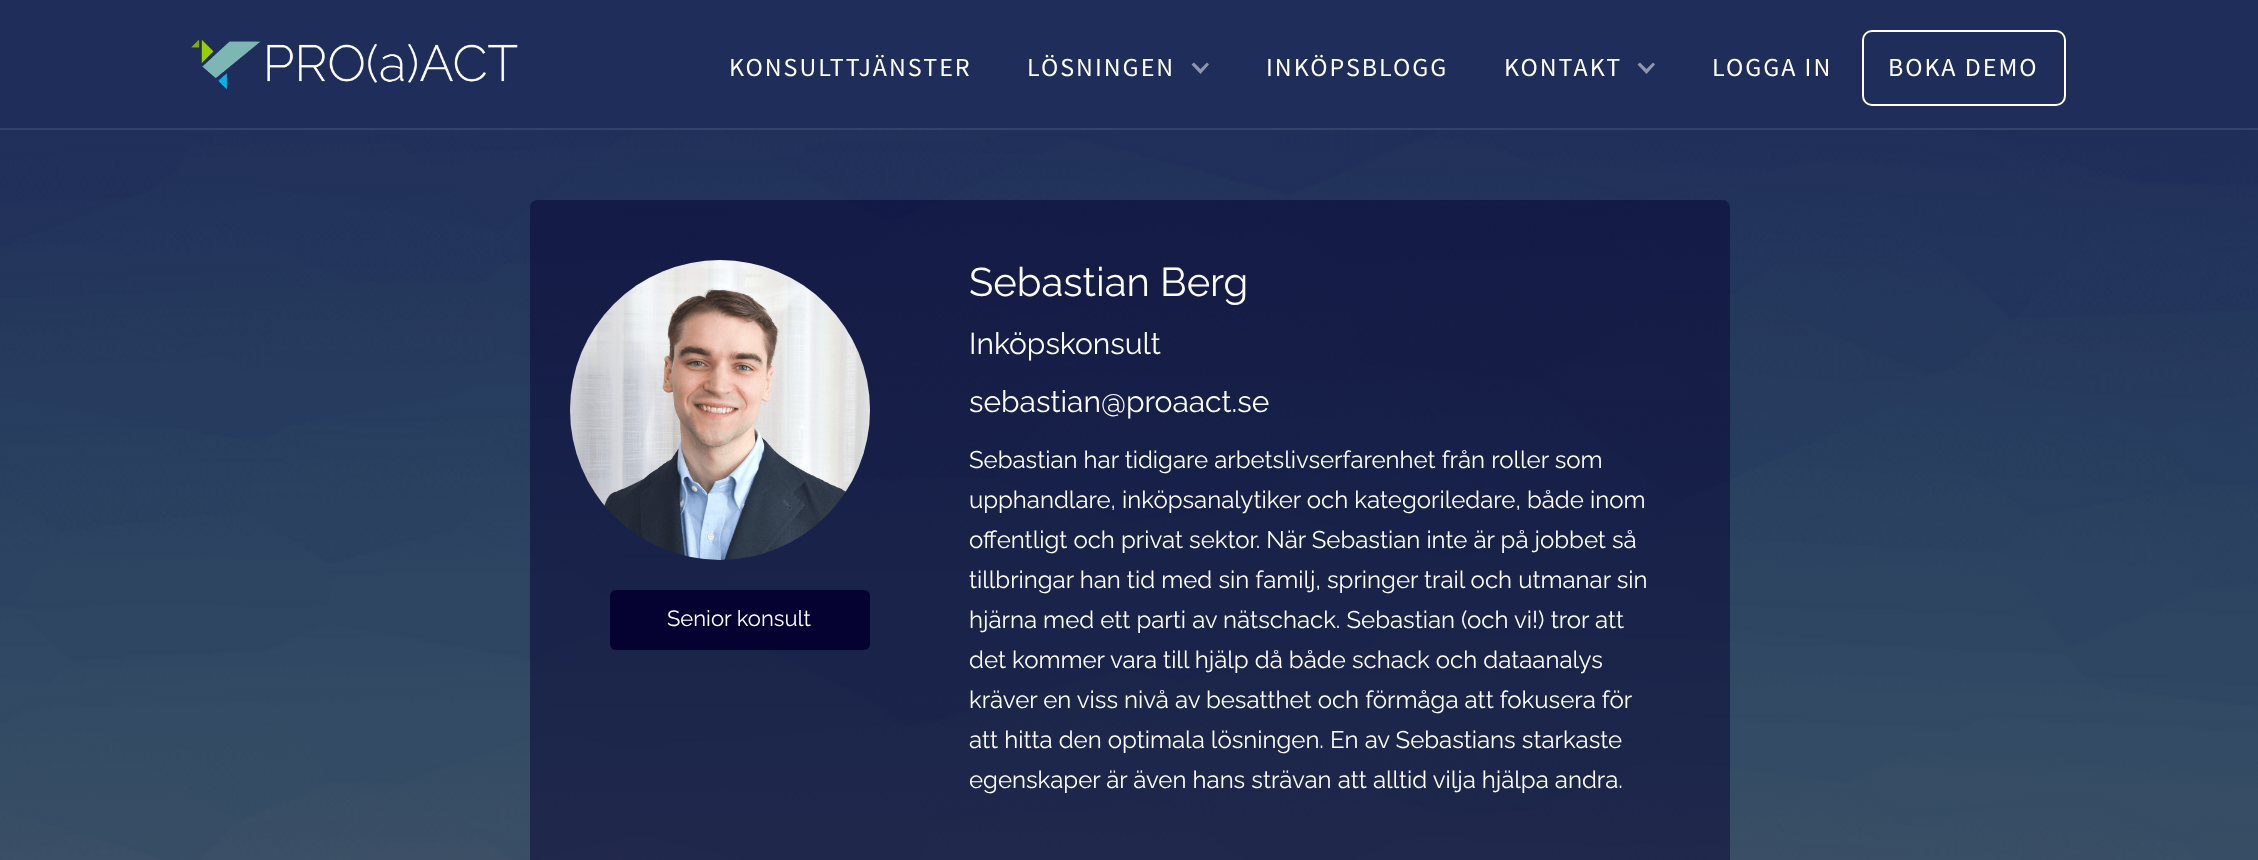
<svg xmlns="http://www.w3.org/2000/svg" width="2258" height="860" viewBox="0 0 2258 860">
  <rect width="100%" height="100%" fill="#fff"/>
  <path d="M0 0h2258v128H0z" fill="#1e2d59"/>
  <path d="M0 128h2258v2H0z" fill="#35426a"/>
  <image x="191" y="39" width="327" height="51" href="img/1.png"/>
  <path d="M1207 62.5L1200.5 69L1194 62.5L1191.5 64.5L1200.5 74L1209 64.5Z" fill="#8f96ac"/>
  <path d="M1653 62.5L1646.5 69L1640 62.5L1637.5 64.5L1646.5 74L1655 64.5Z" fill="#8f96ac"/>
  <rect x="1863" y="31" width="202" height="74" rx="9" fill="none" stroke="#fff" stroke-width="2"/>
  <image x="0" y="130" width="2258" height="730" href="img/2.png"/>
  <rect x="530" y="200" width="1200" height="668" rx="8" fill="#05023280"/>
  <image x="570" y="260" width="300" height="300" href="img/3.png"/>
  <rect x="610" y="590" width="260" height="60" rx="6" fill="#050232"/>
  <g font-family="Source Sans Pro" font-size="26" letter-spacing="2" fill="#fff">
    <text x="729" y="76">KONSULTTJÄNSTER</text>
    <text x="1027" y="76">LÖSNINGEN</text>
    <text x="1266" y="76">INKÖPSBLOGG</text>
    <text x="1504" y="76">KONTAKT</text>
    <text x="1712" y="76">LOGGA IN</text>
    <text x="1888" y="76">BOKA DEMO</text>
  </g>
  <text x="667" y="626" font-family="Raleway" font-size="22" font-weight="100" fill="#fff">Senior konsult</text>
  <text x="969" y="296" font-family="Raleway" font-size="40" font-weight="100" fill="#fff">Sebastian Berg</text>
  <g font-family="Raleway" font-size="30" font-weight="100" fill="#fff">
    <text x="969" y="354">Inköpskonsult</text>
    <text x="969" y="412">sebastian@proaact.se</text>
  </g>
  <g font-family="Raleway" font-size="24" font-weight="100" fill="#fff">
    <text x="969" y="468">Sebastian har tidigare arbetslivserfarenhet från roller som</text>
    <text x="969" y="508">upphandlare, inköpsanalytiker och kategoriledare, både inom</text>
    <text x="969" y="548">offentligt och privat sektor. När Sebastian inte är på jobbet så</text>
    <text x="969" y="588">tillbringar han tid med sin familj, springer trail och utmanar sin</text>
    <text x="969" y="628">hjärna med ett parti av nätschack. Sebastian (och vi!) tror att</text>
    <text x="969" y="668">det kommer vara till hjälp då både schack och dataanalys</text>
    <text x="969" y="708">kräver en viss nivå av besatthet och förmåga att fokusera för</text>
    <text x="969" y="748">att hitta den optimala lösningen. En av Sebastians starkaste</text>
    <text x="969" y="788">egenskaper är även hans strävan att alltid vilja hjälpa andra.</text>
  </g>
</svg>
